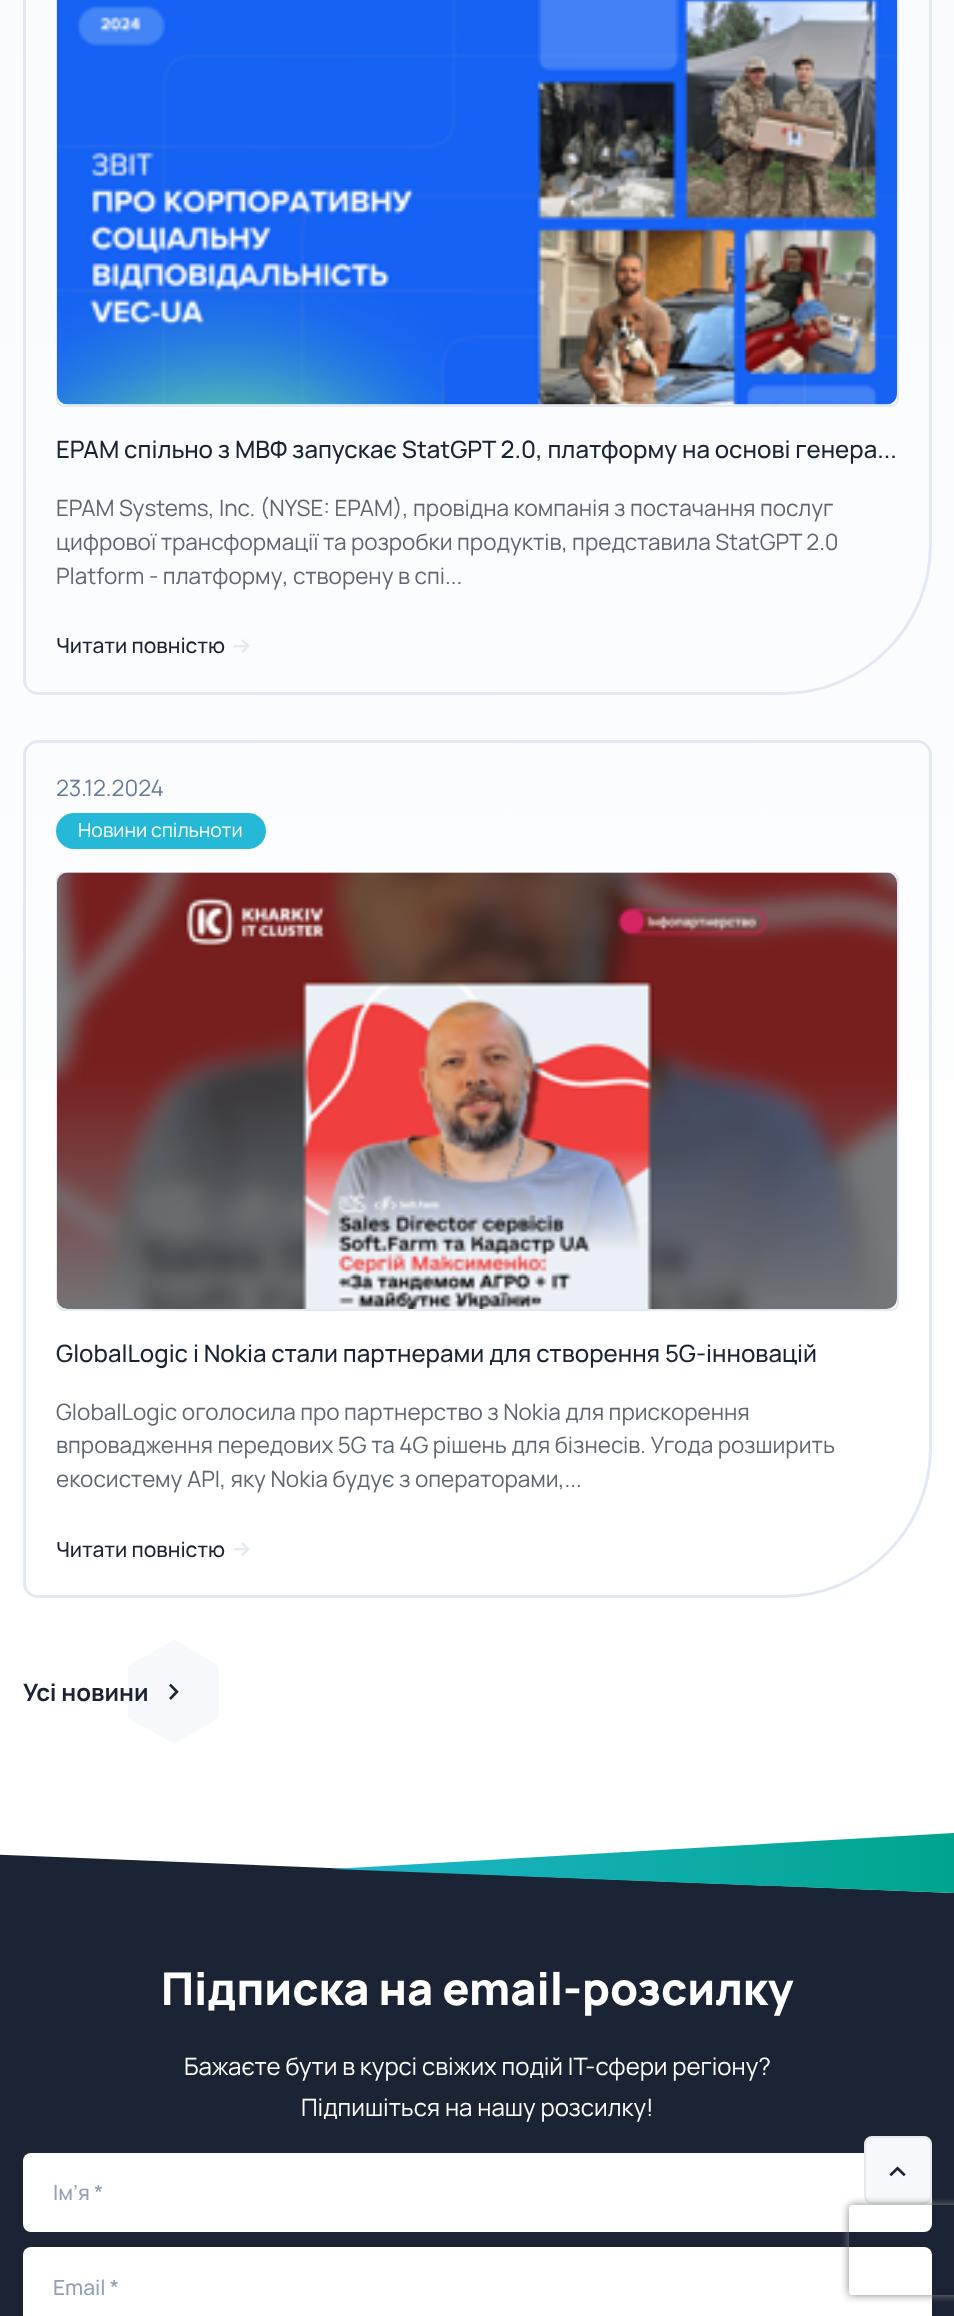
<svg xmlns="http://www.w3.org/2000/svg" width="954" height="2316" viewBox="0 0 954 2316">
  <defs>
    <linearGradient id="g1" gradientUnits="userSpaceOnUse" x1="477" y1="1989" x2="477" y2="-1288"><stop offset="0" stop-color="#fff"/><stop offset="1" stop-color="#f6f8fb"/></linearGradient>
    <linearGradient id="g2" gradientUnits="userSpaceOnUse" x1="204" y1="1863" x2="954" y2="1863"><stop offset="0" stop-color="#25b9d7"/><stop offset="1" stop-color="#00a48c"/></linearGradient>
    <clipPath id="clip1"><path d="M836 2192H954V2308H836ZM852 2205H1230C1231.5 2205 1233 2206.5 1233 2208V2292C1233 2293.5 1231.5 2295 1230 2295H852C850.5 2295 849 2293.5 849 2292V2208C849 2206.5 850.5 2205 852 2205Z" clip-rule="evenodd"/></clipPath>
  </defs>
  <rect width="100%" height="100%" fill="#fff"/>
  <path d="M0 0h954v1079H0z" fill="url(#g1)"/>
  <path d="M38-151.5H917C924.5-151.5 930.5-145.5 930.5-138V545C930.5 627 864 693.5 782 693.5H38C30.5 693.5 24.5 687.5 24.5 680V-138C24.5-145.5 30.5-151.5 38-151.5Z" fill="none" stroke="#e2e9f2" stroke-width="3"/>
  <rect x="57" y="-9" width="841" height="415" rx="7" fill="none" stroke="#e2e9f2" stroke-width="2"/>
  <image x="57" y="0" width="840" height="405" href="img/1.png"/>
  <image x="233" y="639" width="17" height="14" href="img/2.png"/>
  <path d="M38 741.5H917C924.5 741.5 930.5 747.5 930.5 755V1448C930.5 1530 864 1596.5 782 1596.5H38C30.5 1596.5 24.5 1590.5 24.5 1583V755C24.5 747.5 30.5 741.5 38 741.5Z" fill="none" stroke="#e2e9f2" stroke-width="3"/>
  <rect x="56" y="813" width="210" height="36" rx="18" fill="#25b9d7"/>
  <rect x="57" y="873" width="841" height="437" rx="7" fill="none" stroke="#e2e9f2" stroke-width="2"/>
  <image x="57" y="872" width="840" height="437" href="img/3.png"/>
  <image x="233" y="1542" width="17" height="14" href="img/4.png"/>
  <path d="M219 1718V1666L175 1640H173L128 1666V1718L174 1744Z" fill="#f6f8fb"/>
  <image x="169" y="1683" width="10" height="17" href="img/5.png"/>
  <path d="M0 1854h954v462H0z" fill="#1b2434"/>
  <path d="M-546 1833H954V1893Z" fill="#fff"/>
  <path d="M954 1833L332 1869L954 1893Z" fill="url(#g2)"/>
  <rect x="23" y="2153" width="909" height="79" rx="8" fill="#fff"/>
  <rect x="23" y="2247" width="909" height="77" rx="8" fill="#fff"/>
  <rect x="865" y="2137" width="66" height="66" rx="7" fill="#f6f8fb" stroke="#e7e8e9" stroke-width="2"/>
  <image x="889" y="2166" width="17" height="11" href="img/6.png"/>
  <g clip-path="url(#clip1)">
    <rect x="849" y="2205" width="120" height="90" rx="3" fill="#808080" filter="blur(4px)"/>
  </g>
  <text x="56" y="458" font-family="Manrope" font-size="24" font-weight="500" fill="#1b2434">EPAM спільно з МВФ запускає StatGPT 2.0, платформу на основі генера...</text>
  <g font-family="Manrope" font-size="22.5" fill="#5f6671">
    <text x="56" y="516">EPAM Systems, Inc. (NYSE: EPAM), провідна компанія з постачання послуг</text>
    <text x="56" y="550">цифрової трансформації та розробки продуктів, представила StatGPT 2.0</text>
    <text x="56" y="584">Platform - платформу, створену в спі...</text>
  </g>
  <text x="56" y="653" font-family="Manrope" font-size="21" font-weight="500" fill="#1b2434">Читати повністю</text>
  <text x="56" y="796" font-family="Manrope" font-size="22.5" fill="#66799b">23.12.2024</text>
  <text x="78" y="837" font-family="Manrope" font-size="19.5" fill="#fff">Новини спільноти</text>
  <text x="56" y="1362" font-family="Manrope" font-size="24" font-weight="500" fill="#1b2434">GlobalLogic і Nokia стали партнерами для створення 5G-інновацій</text>
  <g font-family="Manrope" font-size="22.5" fill="#5f6671">
    <text x="56" y="1420">GlobalLogic оголосила про партнерство з Nokia для прискорення</text>
    <text x="56" y="1453">впровадження передових 5G та 4G рішень для бізнесів. Угода розширить</text>
    <text x="56" y="1487">екосистему АРІ, яку Nokia будує з операторами,...</text>
  </g>
  <text x="56" y="1557" font-family="Manrope" font-size="21" font-weight="500" fill="#1b2434">Читати повністю</text>
  <text x="23" y="1701" font-family="Manrope" font-size="24" font-weight="bold" fill="#1b2434">Усі новини</text>
  <text x="161" y="2005" font-family="Manrope" font-size="45" font-weight="800" fill="#fff">Підписка на email-розсилку</text>
  <g font-family="Manrope" font-size="24" fill="#fff">
    <text x="184" y="2075">Бажаєте бути в курсі свіжих подій IT-сфери регіону?</text>
    <text x="301" y="2116">Підпишіться на нашу розсилку!</text>
  </g>
  <g font-family="Manrope" font-size="21" font-weight="500" fill="#919fb7">
    <text x="53" y="2200">Ім’я *</text>
    <text x="53" y="2295">Email *</text>
  </g>
</svg>
